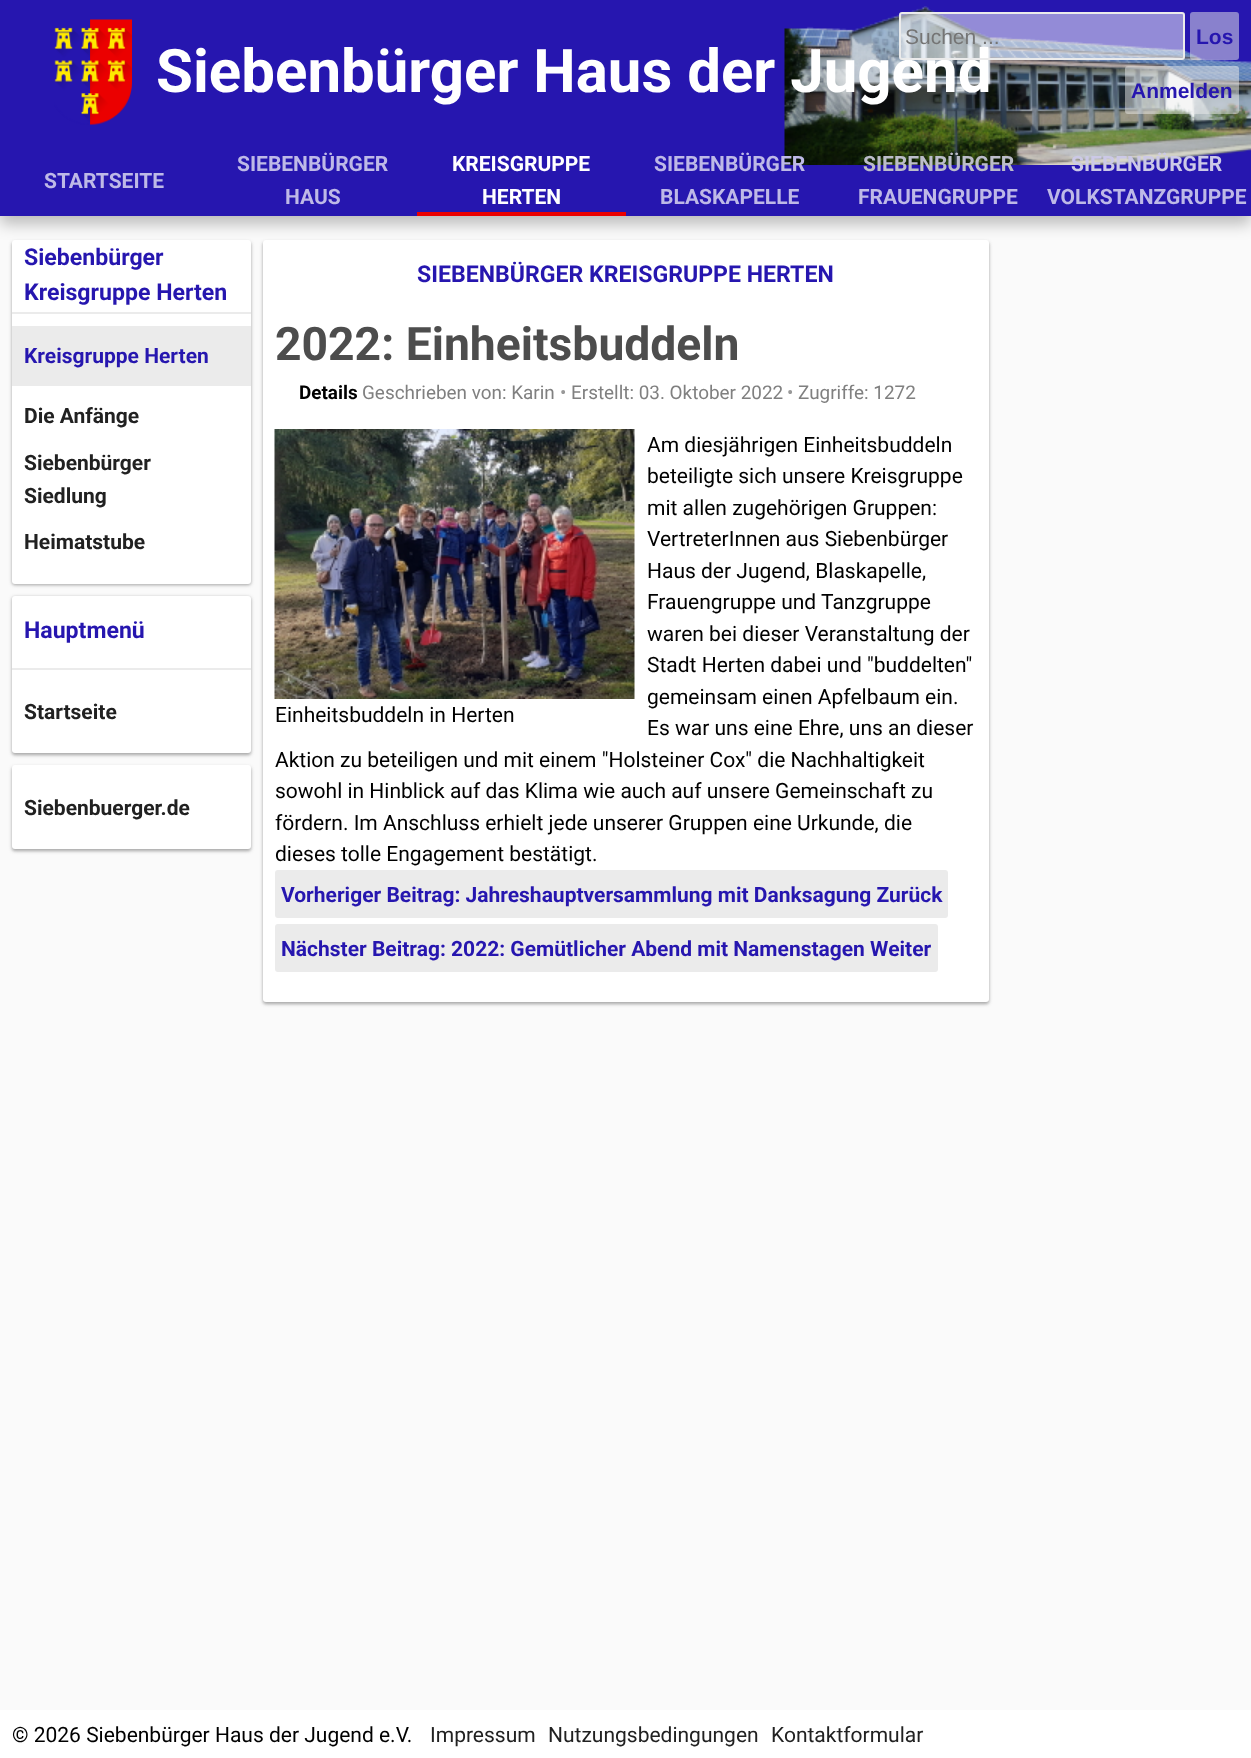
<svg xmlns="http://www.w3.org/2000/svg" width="1251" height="1758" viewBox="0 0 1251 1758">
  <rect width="100%" height="100%" fill="#fafafa"/>
  <path d="M0 8h1251v216H0z" fill="#00000040" filter="blur(7.5px)"/>
  <path d="M0 0h1251v216H0z" fill="#2616af"/>
  <image x="784" y="6" width="467" height="159" href="img/1.png"/>
  <rect x="1190" y="12" width="49" height="48" rx="3" fill="#ebebeb80"/>
  <rect x="1125" y="66" width="114" height="48" rx="3" fill="#ebebeb80"/>
  <path d="M417 212h209v4H417z" fill="#eb0000"/>
  <rect x="12" y="242" width="239" height="343" rx="3" fill="#0000003d" filter="blur(1.5px)"/>
  <rect x="12" y="242" width="239" height="343" rx="3" fill="#0000001f" filter="blur(2px)"/>
  <rect x="12" y="240" width="239" height="344" rx="3" fill="#fff"/>
  <path d="M12 312h239v2H12z" fill="#ebebeb"/>
  <path d="M12 326h239v60H12z" fill="#ebebeb"/>
  <rect x="12" y="597" width="239" height="158" rx="3" fill="#0000003d" filter="blur(1.5px)"/>
  <rect x="12" y="597" width="239" height="158" rx="3" fill="#0000001f" filter="blur(2px)"/>
  <rect x="12" y="596" width="239" height="157" rx="3" fill="#fff"/>
  <path d="M12 668h239v2H12z" fill="#ebebeb"/>
  <rect x="12" y="767" width="239" height="84" rx="3" fill="#0000003d" filter="blur(1.5px)"/>
  <rect x="12" y="767" width="239" height="84" rx="3" fill="#0000001f" filter="blur(2px)"/>
  <rect x="12" y="765" width="239" height="84" rx="3" fill="#fff"/>
  <image x="54" y="19" width="78" height="106" href="img/2.png"/>
  <rect x="263" y="242" width="726" height="762" rx="3" fill="#0000003d" filter="blur(1.5px)"/>
  <rect x="263" y="242" width="726" height="762" rx="3" fill="#0000001f" filter="blur(2px)"/>
  <rect x="263" y="240" width="726" height="762" rx="3" fill="#fff"/>
  <image x="274" y="429" width="361" height="270" href="img/3.png"/>
  <rect x="275" y="870" width="673" height="48" rx="3" fill="#ebebeb"/>
  <rect x="275" y="924" width="663" height="48" rx="3" fill="#ebebeb"/>
  <path d="M0 1710h1251v48H0z" fill="#fff"/>
  <g font-family="Liberation Sans" font-size="21" font-weight="bold" fill="#2616af">
    <text x="1196" y="44">Los</text>
    <text x="1131" y="98">Anmelden</text>
  </g>
  <g font-family="Roboto" font-size="21" font-weight="bold" fill="#beb9e7">
    <text x="44" y="188">STARTSEITE</text>
    <text x="237" y="171">SIEBENBÜRGER</text>
    <text x="285" y="204">HAUS</text>
  </g>
  <g font-family="Roboto" font-size="21" font-weight="bold" fill="#fff">
    <text x="452" y="171">KREISGRUPPE</text>
    <text x="482" y="204">HERTEN</text>
  </g>
  <g font-family="Roboto" font-size="21" font-weight="bold" fill="#beb9e7">
    <text x="654" y="171">SIEBENBÜRGER</text>
    <text x="660" y="204">BLASKAPELLE</text>
  </g>
  <text x="863" y="171" font-family="Roboto" font-size="21" font-weight="bold" fill="#bcbdca">SIEBENBÜRGER</text>
  <text x="858" y="204" font-family="Roboto" font-size="21" font-weight="bold" fill="#beb9e7">FRAUENGRUPPE</text>
  <text x="1071" y="171" font-family="Roboto" font-size="21" font-weight="bold" fill="#ccc9e7">SIEBENBÜRGER</text>
  <text x="1047" y="204" font-family="Roboto" font-size="21" font-weight="bold" fill="#beb9e7">VOLKSTANZGRUPPE</text>
  <g font-family="Roboto" font-size="23.1" font-weight="bold" fill="#2616af">
    <text x="24" y="265">Siebenbürger</text>
    <text x="24" y="300">Kreisgruppe Herten</text>
  </g>
  <text x="24" y="363" font-family="Roboto" font-size="21" font-weight="bold" fill="#2616af">Kreisgruppe Herten</text>
  <g font-family="Roboto" font-size="21" font-weight="bold" fill="#212121">
    <text x="24" y="423">Die Anfänge</text>
    <text x="24" y="470">Siebenbürger</text>
    <text x="24" y="503">Siedlung</text>
    <text x="24" y="549">Heimatstube</text>
  </g>
  <text x="24" y="638" font-family="Roboto" font-size="23.1" font-weight="bold" fill="#2616af">Hauptmenü</text>
  <g font-family="Roboto" font-size="21" font-weight="bold" fill="#212121">
    <text x="24" y="719">Startseite</text>
    <text x="24" y="815">Siebenbuerger.de</text>
  </g>
  <text x="156" y="92" font-family="Roboto" font-size="60" font-weight="bold" fill="#fff">Siebenbürger Haus der Jugend</text>
  <rect x="900" y="13" width="284" height="46" rx="2" fill="#ffffff80" stroke="#ebebeb" stroke-width="2"/>
  <text x="905" y="44" font-family="Liberation Sans" font-size="21" fill="#757575">Suchen ...</text>
  <text x="417" y="282" font-family="Roboto" font-size="23.1" font-weight="bold" fill="#2616af">SIEBENBÜRGER KREISGRUPPE HERTEN</text>
  <text x="275" y="360" font-family="Roboto" font-size="46.25" font-weight="bold" fill="#4d4d4d">2022: Einheitsbuddeln</text>
  <text x="299" y="399" font-family="Roboto" font-size="18.9" font-weight="bold" fill="#000">Details</text>
  <text x="362" y="399" font-family="Roboto" font-size="18.9" fill="#808080">Geschrieben von: Karin</text>
  <text x="560" y="399" font-family="Roboto" font-size="18.9" fill="#999">•</text>
  <text x="571" y="399" font-family="Roboto" font-size="18.9" fill="#808080">Erstellt: 03. Oktober 2022</text>
  <text x="787" y="399" font-family="Roboto" font-size="18.9" fill="#999">•</text>
  <text x="798" y="399" font-family="Roboto" font-size="18.9" fill="#808080">Zugriffe: 1272</text>
  <g font-family="Roboto" font-size="21" fill="#000">
    <text x="647" y="452">Am diesjährigen Einheitsbuddeln</text>
    <text x="647" y="483">beteiligte sich unsere Kreisgruppe</text>
    <text x="647" y="515">mit allen zugehörigen Gruppen:</text>
    <text x="647" y="546">VertreterInnen aus Siebenbürger</text>
    <text x="647" y="578">Haus der Jugend, Blaskapelle,</text>
    <text x="647" y="609">Frauengruppe und Tanzgruppe</text>
    <text x="647" y="641">waren bei dieser Veranstaltung der</text>
    <text x="647" y="672">Stadt Herten dabei und "buddelten"</text>
    <text x="647" y="704">gemeinsam einen Apfelbaum ein.</text>
    <text x="647" y="735">Es war uns eine Ehre, uns an dieser</text>
    <text x="275" y="767">Aktion zu beteiligen und mit einem "Holsteiner Cox" die Nachhaltigkeit</text>
    <text x="275" y="798">sowohl in Hinblick auf das Klima wie auch auf unsere Gemeinschaft zu</text>
    <text x="275" y="830">fördern. Im Anschluss erhielt jede unserer Gruppen eine Urkunde, die</text>
    <text x="275" y="861">dieses tolle Engagement bestätigt.</text>
    <text x="275" y="722">Einheitsbuddeln in Herten</text>
  </g>
  <g font-family="Roboto" font-size="21" font-weight="bold" fill="#2616af">
    <text x="281" y="902">Vorheriger Beitrag: Jahreshauptversammlung mit Danksagung Zurück</text>
    <text x="281" y="956">Nächster Beitrag: 2022: Gemütlicher Abend mit Namenstagen Weiter</text>
  </g>
  <text x="12" y="1742" font-family="Roboto" font-size="21" fill="#000">© 2026 Siebenbürger Haus der Jugend e.V.</text>
  <g font-family="Roboto" font-size="21" fill="#212121">
    <text x="430" y="1742">Impressum</text>
    <text x="548" y="1742">Nutzungsbedingungen</text>
    <text x="771" y="1742">Kontaktformular</text>
  </g>
</svg>
